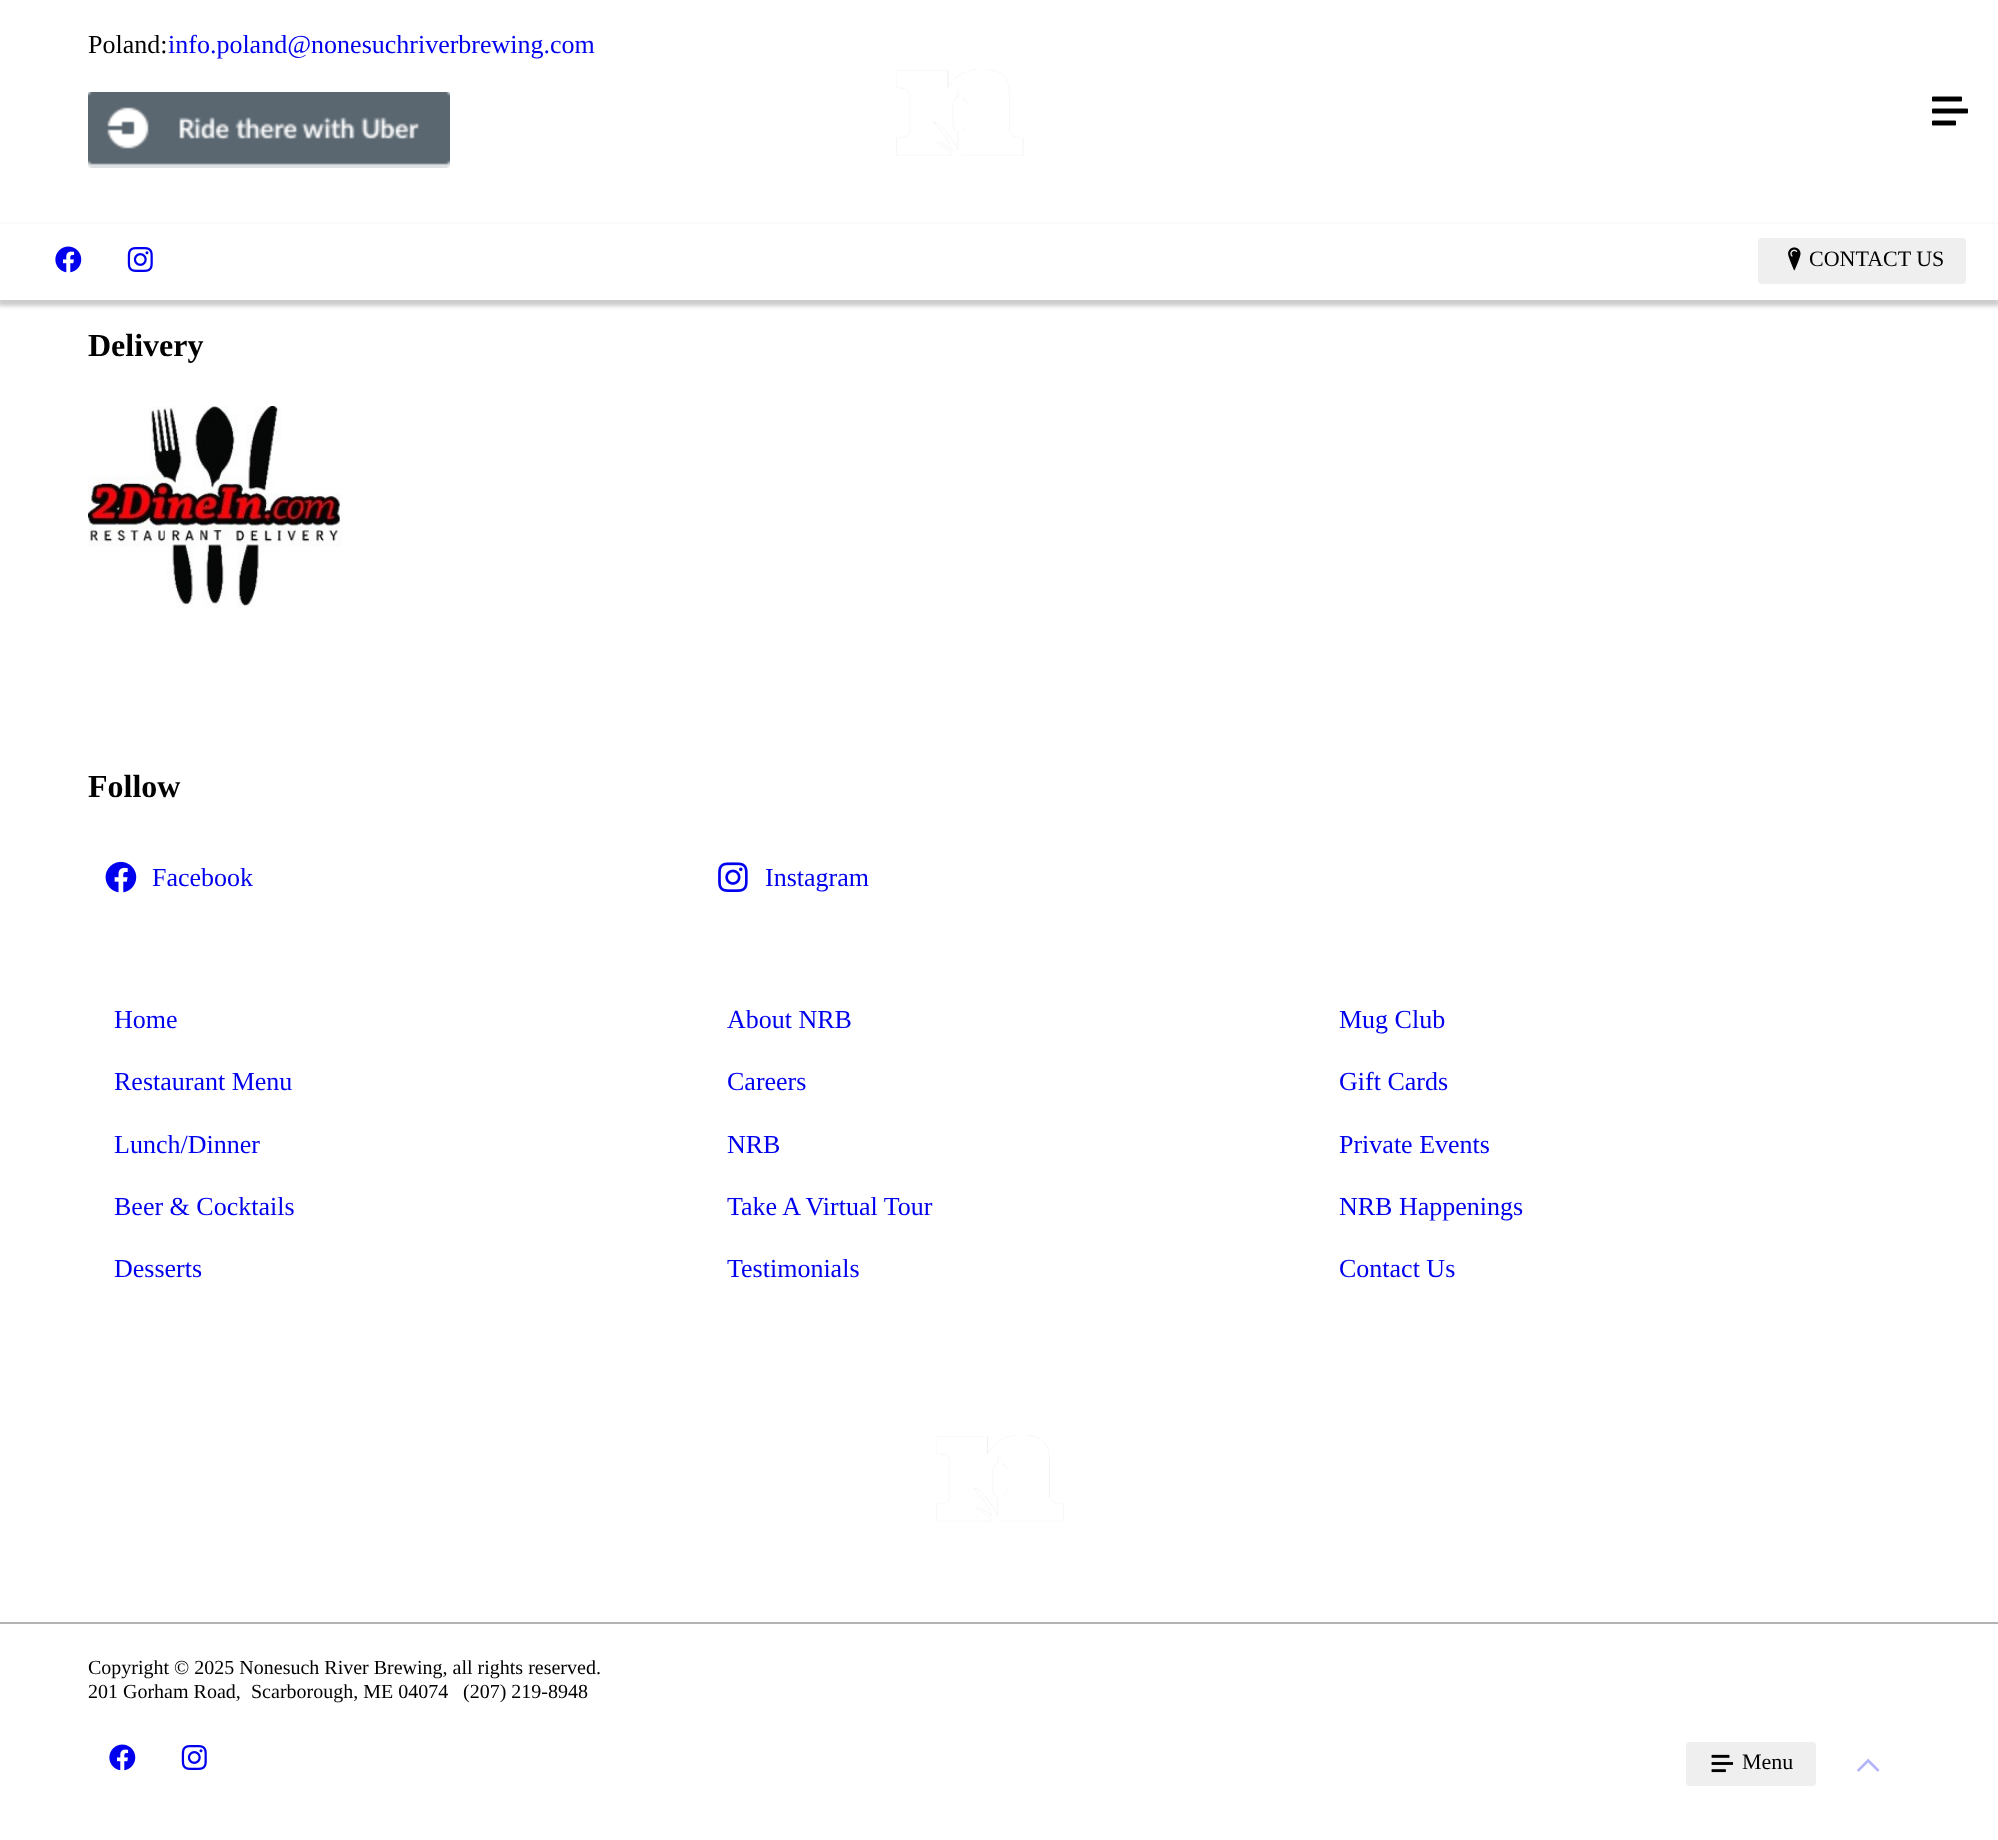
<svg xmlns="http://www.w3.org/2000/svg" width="1998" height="1840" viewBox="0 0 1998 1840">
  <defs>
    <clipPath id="clip1"><path d="M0 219H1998V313H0ZM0 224H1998V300H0Z" clip-rule="evenodd"/></clipPath>
  </defs>
  <rect width="100%" height="100%" fill="#fff"/>
  <image x="88" y="92" width="362" height="76" href="img/1.png"/>
  <image x="88" y="406" width="255" height="202" href="img/2.png"/>
  <image x="105" y="861" width="32" height="32" href="img/3.png"/>
  <image x="718" y="862" width="30" height="30" href="img/4.png"/>
  <image x="936" y="1435" width="128" height="87" href="img/5.png"/>
  <path d="M0 1622h1998v2H0z" fill="#b3b3b3"/>
  <image x="109" y="1744" width="27" height="27" href="img/6.png"/>
  <image x="181" y="1745" width="26" height="25" href="img/7.png"/>
  <rect x="1686" y="1742" width="130" height="44" rx="4" fill="#efefef"/>
  <image x="1711" y="1754" width="23" height="19" href="img/8.png"/>
  <image x="896" y="69" width="128" height="87" href="img/9.png"/>
  <image x="1932" y="96" width="36" height="30" href="img/10.png"/>
  <g clip-path="url(#clip1)">
    <path d="M-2 226h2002v80H-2z" fill="#00000033" filter="blur(2px)"/>
  </g>
  <image x="55" y="246" width="27" height="27" href="img/6.png"/>
  <image x="127" y="247" width="26" height="25" href="img/7.png"/>
  <rect x="1758" y="238" width="208" height="46" rx="4" fill="#efefef"/>
  <image x="1788" y="247" width="13" height="24" href="img/11.png"/>
  <text x="88" y="53" font-family="Liberation Serif" font-size="26" fill="#000">Poland:</text>
  <text x="168" y="53" font-family="Liberation Serif" font-size="26" fill="#00e">info.poland@nonesuchriverbrewing.com</text>
  <g font-family="Liberation Serif" font-size="32" font-weight="bold" fill="#000">
    <text x="88" y="356">Delivery</text>
    <text x="88" y="797">Follow</text>
  </g>
  <g font-family="Liberation Serif" font-size="26" fill="#00e">
    <text x="152" y="886">Facebook</text>
    <text x="765" y="886">Instagram</text>
    <text x="114" y="1028">Home</text>
    <text x="727" y="1028">About NRB</text>
    <text x="727" y="1090">Careers</text>
    <text x="727" y="1153">NRB</text>
    <text x="727" y="1215">Take A Virtual Tour</text>
    <text x="727" y="1277">Testimonials</text>
    <text x="1339" y="1028">Mug Club</text>
    <text x="114" y="1090">Restaurant Menu</text>
    <text x="114" y="1153">Lunch/Dinner</text>
    <text x="114" y="1215">Beer &amp; Cocktails</text>
    <text x="114" y="1277">Desserts</text>
    <text x="1339" y="1090">Gift Cards</text>
    <text x="1339" y="1153">Private Events</text>
    <text x="1339" y="1215">NRB Happenings</text>
    <text x="1339" y="1277">Contact Us</text>
  </g>
  <g font-family="Liberation Serif" font-size="20" fill="#000">
    <text x="88" y="1674">Copyright © 2025 Nonesuch River Brewing, all rights reserved.</text>
    <text x="88" y="1698">201 Gorham Road,</text>
    <text x="251" y="1698">Scarborough, ME 04074</text>
    <text x="463" y="1698">(207) 219-8948</text>
  </g>
  <g font-family="Liberation Serif" font-size="22" fill="#000">
    <text x="1742" y="1769">Menu</text>
    <text x="1809" y="266">CONTACT US</text>
  </g>
  <text x="1857" y="1777" font-family="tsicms" font-size="29" fill="#b3b3fa">+</text>
</svg>
